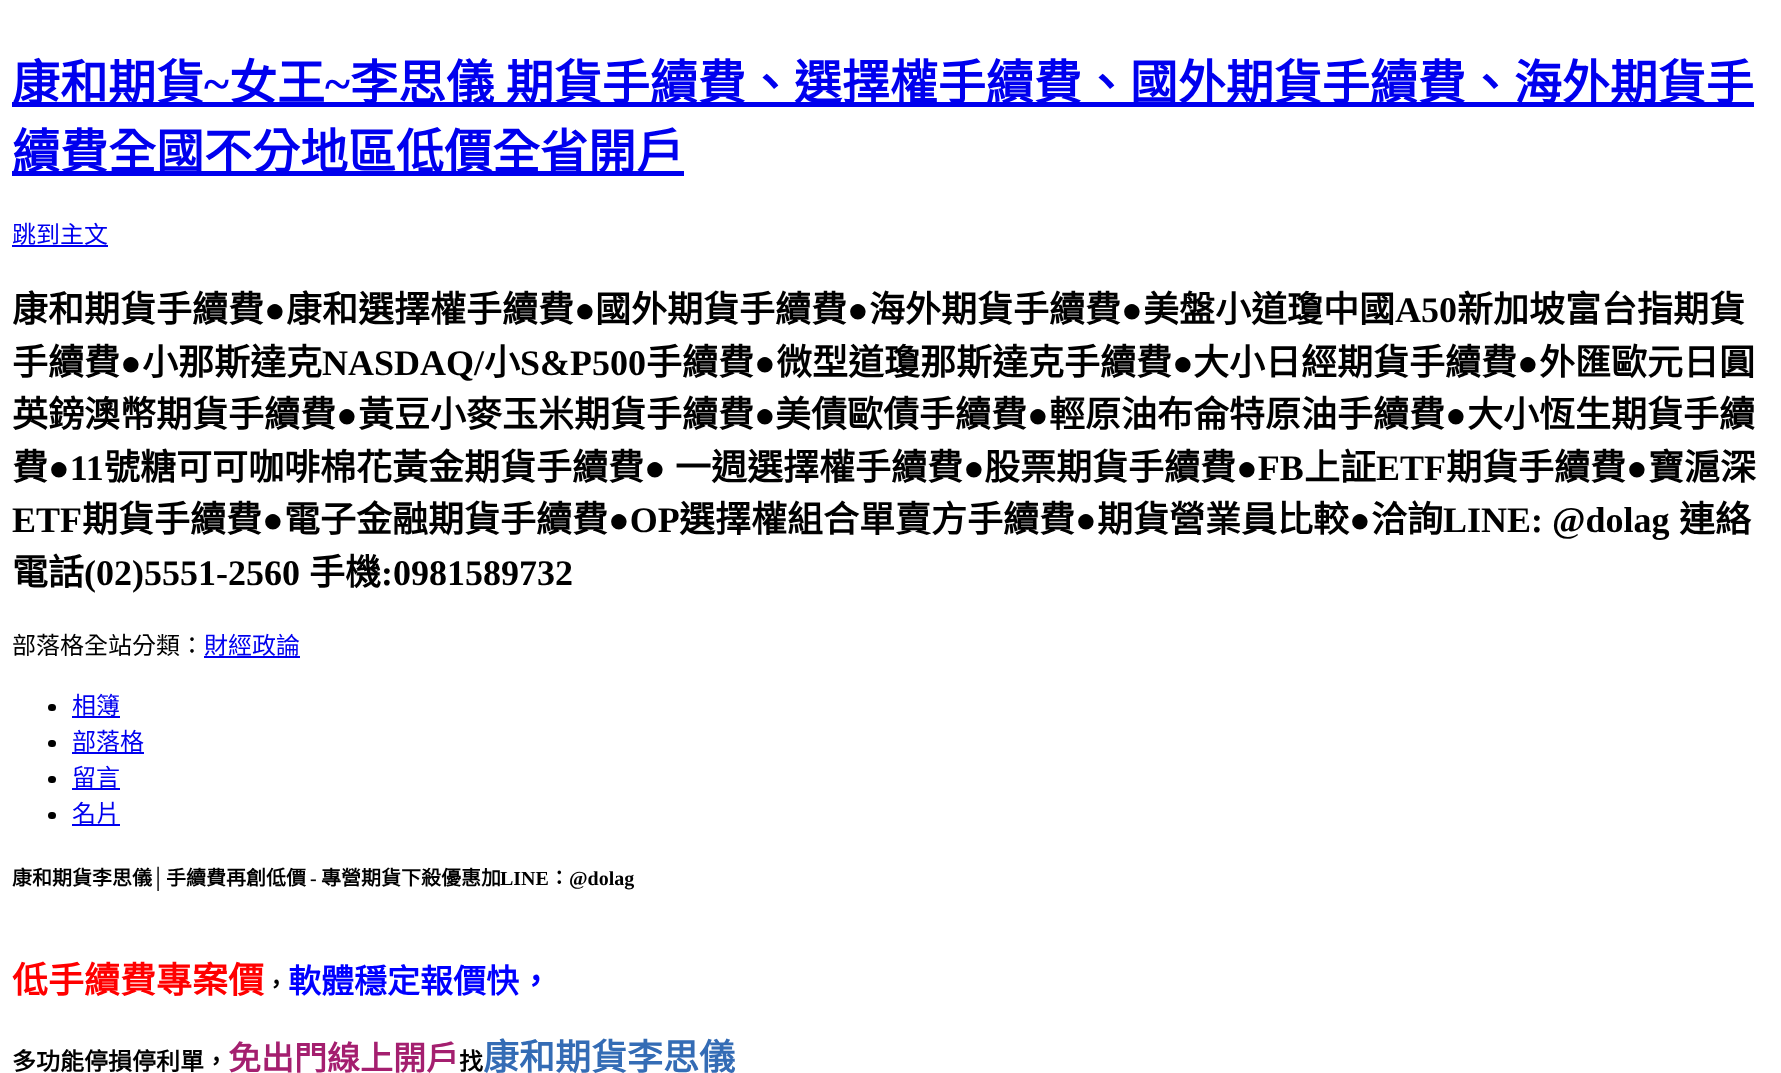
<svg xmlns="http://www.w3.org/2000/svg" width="1781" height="1073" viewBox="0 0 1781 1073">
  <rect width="100%" height="100%" fill="#fff"/>
  <path d="M12 102h1742v5H12z" fill="#00e"/>
  <path d="M12 171h672v5H12z" fill="#00e"/>
  <path d="M12 245h96v2H12z" fill="#00e"/>
  <path d="M204 656h96v2H204z" fill="#00e"/>
  <rect x="48" y="704" width="8" height="7" rx="3.5" fill="#000"/>
  <path d="M72 716h48v2H72z" fill="#00e"/>
  <rect x="48" y="740" width="8" height="7" rx="3.5" fill="#000"/>
  <path d="M72 752h72v2H72z" fill="#00e"/>
  <rect x="48" y="776" width="8" height="7" rx="3.5" fill="#000"/>
  <path d="M72 788h48v2H72z" fill="#00e"/>
  <rect x="48" y="812" width="8" height="7" rx="3.5" fill="#000"/>
  <path d="M72 824h48v2H72z" fill="#00e"/>
  <text x="12" y="100" font-family="Noto Sans CJK TC" font-size="48" font-weight="bold" fill="#00e">康和期貨</text>
  <text x="204" y="100" font-family="Liberation Serif" font-size="48" font-weight="bold" fill="#00e">~</text>
  <text x="229" y="100" font-family="Noto Sans CJK TC" font-size="48" font-weight="bold" fill="#00e">女王</text>
  <text x="325" y="100" font-family="Liberation Serif" font-size="48" font-weight="bold" fill="#00e">~</text>
  <g font-family="Noto Sans CJK TC" font-size="48" font-weight="bold" fill="#00e">
    <text x="350" y="100" word-spacing="1">李思儀 期貨手續費、選擇權手續費、國外期貨手續費、海外期貨手</text>
    <text x="12" y="169">續費全國不分地區低價全省開戶</text>
  </g>
  <text x="12" y="243" font-family="Noto Sans CJK TC" font-size="24" fill="#00e">跳到主文</text>
  <text x="12" y="322" font-family="Noto Sans CJK TC" font-size="36" font-weight="bold" fill="#000">康和期貨手續費</text>
  <text x="264" y="322" font-family="Liberation Serif" font-size="36" font-weight="bold" fill="#000">●</text>
  <text x="286" y="322" font-family="Noto Sans CJK TC" font-size="36" font-weight="bold" fill="#000">康和選擇權手續費</text>
  <text x="574" y="322" font-family="Liberation Serif" font-size="36" font-weight="bold" fill="#000">●</text>
  <text x="595" y="322" font-family="Noto Sans CJK TC" font-size="36" font-weight="bold" fill="#000">國外期貨手續費</text>
  <text x="847" y="322" font-family="Liberation Serif" font-size="36" font-weight="bold" fill="#000">●</text>
  <text x="869" y="322" font-family="Noto Sans CJK TC" font-size="36" font-weight="bold" fill="#000">海外期貨手續費</text>
  <text x="1121" y="322" font-family="Liberation Serif" font-size="36" font-weight="bold" fill="#000">●</text>
  <text x="1143" y="322" font-family="Noto Sans CJK TC" font-size="36" font-weight="bold" fill="#000">美盤小道瓊中國</text>
  <text x="1395" y="322" font-family="Liberation Serif" font-size="36" font-weight="bold" fill="#000">A50</text>
  <g font-family="Noto Sans CJK TC" font-size="36" font-weight="bold" fill="#000">
    <text x="1457" y="322">新加坡富台指期貨</text>
    <text x="12" y="375">手續費</text>
  </g>
  <text x="120" y="375" font-family="Liberation Serif" font-size="36" font-weight="bold" fill="#000">●</text>
  <text x="142" y="375" font-family="Noto Sans CJK TC" font-size="36" font-weight="bold" fill="#000">小那斯達克</text>
  <text x="322" y="375" font-family="Liberation Serif" font-size="36" font-weight="bold" fill="#000">NASDAQ/</text>
  <text x="484" y="375" font-family="Noto Sans CJK TC" font-size="36" font-weight="bold" fill="#000">小</text>
  <text x="520" y="375" font-family="Liberation Serif" font-size="36" font-weight="bold" fill="#000">S&amp;P500</text>
  <text x="646" y="375" font-family="Noto Sans CJK TC" font-size="36" font-weight="bold" fill="#000">手續費</text>
  <text x="754" y="375" font-family="Liberation Serif" font-size="36" font-weight="bold" fill="#000">●</text>
  <text x="776" y="375" font-family="Noto Sans CJK TC" font-size="36" font-weight="bold" fill="#000">微型道瓊那斯達克手續費</text>
  <text x="1172" y="375" font-family="Liberation Serif" font-size="36" font-weight="bold" fill="#000">●</text>
  <text x="1193" y="375" font-family="Noto Sans CJK TC" font-size="36" font-weight="bold" fill="#000">大小日經期貨手續費</text>
  <text x="1517" y="375" font-family="Liberation Serif" font-size="36" font-weight="bold" fill="#000">●</text>
  <g font-family="Noto Sans CJK TC" font-size="36" font-weight="bold" fill="#000">
    <text x="1539" y="375">外匯歐元日圓</text>
    <text x="12" y="427">英鎊澳幣期貨手續費</text>
  </g>
  <text x="336" y="427" font-family="Liberation Serif" font-size="36" font-weight="bold" fill="#000">●</text>
  <text x="358" y="427" font-family="Noto Sans CJK TC" font-size="36" font-weight="bold" fill="#000">黃豆小麥玉米期貨手續費</text>
  <text x="754" y="427" font-family="Liberation Serif" font-size="36" font-weight="bold" fill="#000">●</text>
  <text x="775" y="427" font-family="Noto Sans CJK TC" font-size="36" font-weight="bold" fill="#000">美債歐債手續費</text>
  <text x="1027" y="427" font-family="Liberation Serif" font-size="36" font-weight="bold" fill="#000">●</text>
  <text x="1049" y="427" font-family="Noto Sans CJK TC" font-size="36" font-weight="bold" fill="#000">輕原油布侖特原油手續費</text>
  <text x="1445" y="427" font-family="Liberation Serif" font-size="36" font-weight="bold" fill="#000">●</text>
  <g font-family="Noto Sans CJK TC" font-size="36" font-weight="bold" fill="#000">
    <text x="1467" y="427">大小恆生期貨手續</text>
    <text x="12" y="480">費</text>
  </g>
  <text x="48" y="480" font-family="Liberation Serif" font-size="36" font-weight="bold" fill="#000">●11</text>
  <text x="104" y="480" font-family="Noto Sans CJK TC" font-size="36" font-weight="bold" fill="#000">號糖可可咖啡棉花黃金期貨手續費</text>
  <text x="644" y="480" font-family="Liberation Serif" font-size="36" font-weight="bold" fill="#000">●</text>
  <text x="675" y="480" font-family="Noto Sans CJK TC" font-size="36" font-weight="bold" fill="#000">一週選擇權手續費</text>
  <text x="963" y="480" font-family="Liberation Serif" font-size="36" font-weight="bold" fill="#000">●</text>
  <text x="984" y="480" font-family="Noto Sans CJK TC" font-size="36" font-weight="bold" fill="#000">股票期貨手續費</text>
  <text x="1236" y="480" font-family="Liberation Serif" font-size="36" font-weight="bold" fill="#000">●FB</text>
  <text x="1304" y="480" font-family="Noto Sans CJK TC" font-size="36" font-weight="bold" fill="#000">上証</text>
  <text x="1376" y="480" font-family="Liberation Serif" font-size="36" font-weight="bold" fill="#000">ETF</text>
  <text x="1446" y="480" font-family="Noto Sans CJK TC" font-size="36" font-weight="bold" fill="#000">期貨手續費</text>
  <text x="1626" y="480" font-family="Liberation Serif" font-size="36" font-weight="bold" fill="#000">●</text>
  <text x="1648" y="480" font-family="Noto Sans CJK TC" font-size="36" font-weight="bold" fill="#000">寶滬深</text>
  <text x="12" y="532" font-family="Liberation Serif" font-size="36" font-weight="bold" fill="#000">ETF</text>
  <text x="82" y="532" font-family="Noto Sans CJK TC" font-size="36" font-weight="bold" fill="#000">期貨手續費</text>
  <text x="262" y="532" font-family="Liberation Serif" font-size="36" font-weight="bold" fill="#000">●</text>
  <text x="284" y="532" font-family="Noto Sans CJK TC" font-size="36" font-weight="bold" fill="#000">電子金融期貨手續費</text>
  <text x="608" y="532" font-family="Liberation Serif" font-size="36" font-weight="bold" fill="#000">●OP</text>
  <text x="679" y="532" font-family="Noto Sans CJK TC" font-size="36" font-weight="bold" fill="#000">選擇權組合單賣方手續費</text>
  <text x="1075" y="532" font-family="Liberation Serif" font-size="36" font-weight="bold" fill="#000">●</text>
  <text x="1097" y="532" font-family="Noto Sans CJK TC" font-size="36" font-weight="bold" fill="#000">期貨營業員比較</text>
  <text x="1349" y="532" font-family="Liberation Serif" font-size="36" font-weight="bold" fill="#000">●</text>
  <text x="1371" y="532" font-family="Noto Sans CJK TC" font-size="36" font-weight="bold" fill="#000">洽詢</text>
  <text x="1443" y="532" font-family="Liberation Serif" font-size="36" font-weight="bold" fill="#000">LINE: @dolag</text>
  <g font-family="Noto Sans CJK TC" font-size="36" font-weight="bold" fill="#000">
    <text x="1679" y="532">連絡</text>
    <text x="12" y="585">電話</text>
  </g>
  <text x="84" y="585" font-family="Liberation Serif" font-size="36" font-weight="bold" fill="#000">(02)5551-2560</text>
  <text x="309" y="585" font-family="Noto Sans CJK TC" font-size="36" font-weight="bold" fill="#000">手機</text>
  <text x="381" y="585" font-family="Liberation Serif" font-size="36" font-weight="bold" fill="#000">:0981589732</text>
  <text x="12" y="654" font-family="Noto Sans CJK TC" font-size="24" fill="#000">部落格全站分類：</text>
  <g font-family="Noto Sans CJK TC" font-size="24" fill="#00e">
    <text x="204" y="654">財經政論</text>
    <text x="72" y="714">相簿</text>
    <text x="72" y="750">部落格</text>
    <text x="72" y="786">留言</text>
    <text x="72" y="822">名片</text>
  </g>
  <text x="12" y="885" font-family="Noto Sans CJK TC" font-size="20" font-weight="bold" fill="#000">康和期貨李思儀</text>
  <text x="151" y="885" font-family="Liberation Serif" font-size="20" font-weight="bold" fill="#000">│</text>
  <text x="166" y="885" font-family="Noto Sans CJK TC" font-size="20" font-weight="bold" fill="#000">手續費再創低價</text>
  <text x="310" y="885" font-family="Liberation Serif" font-size="20" font-weight="bold" fill="#000">-</text>
  <text x="321" y="885" font-family="Noto Sans CJK TC" font-size="20" font-weight="bold" fill="#000">專營期貨下殺優惠加</text>
  <text x="500" y="885" font-family="Liberation Serif" font-size="20" font-weight="bold" fill="#000">LINE</text>
  <text x="549" y="885" font-family="Noto Sans CJK TC" font-size="20" font-weight="bold" fill="#000">：</text>
  <text x="569" y="885" font-family="Liberation Serif" font-size="20" font-weight="bold" fill="#000">@dolag</text>
  <text x="12" y="993" font-family="Noto Sans CJK TC" font-size="36" font-weight="bold" fill="#f00">低手續費專案價</text>
  <text x="264" y="993" font-family="Noto Sans CJK TC" font-size="24" font-weight="bold" fill="#000">，</text>
  <text x="288" y="993" font-family="Noto Sans CJK TC" font-size="33" font-weight="bold" fill="#00f">軟體穩定報價快，</text>
  <text x="12" y="1070" font-family="Noto Sans CJK TC" font-size="24" font-weight="bold" fill="#000">多功能停損停利單，</text>
  <text x="228" y="1070" font-family="Noto Sans CJK TC" font-size="33" font-weight="bold" fill="#a41f6f">免出門線上開戶</text>
  <text x="459" y="1070" font-family="Noto Sans CJK TC" font-size="24" font-weight="bold" fill="#000">找</text>
  <text x="483" y="1070" font-family="Noto Sans CJK TC" font-size="36" font-weight="bold" fill="#346cb5">康和期貨李思儀</text>
</svg>
